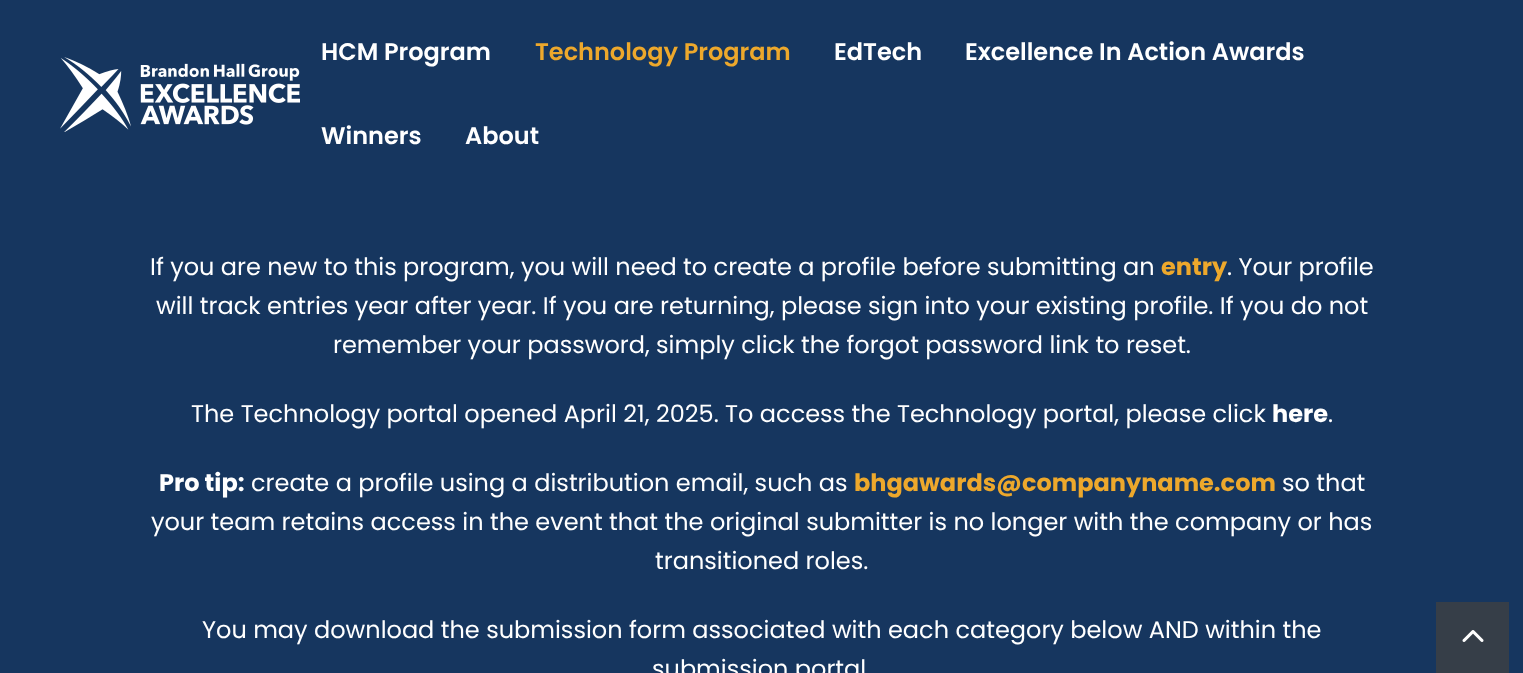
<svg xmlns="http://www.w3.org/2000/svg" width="1523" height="673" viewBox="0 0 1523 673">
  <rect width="100%" height="100%" fill="#16365f"/>
  <image x="60" y="57" width="240" height="75" href="img/1.png"/>
  <path d="M1436 602h73v71H1436z" fill="#363e48"/>
  <image x="1462" y="630" width="22" height="12" href="img/2.png"/>
  <text x="321" y="60" font-family="Poppins" font-size="24" font-weight="600" fill="#fff">HCM Program</text>
  <text x="535" y="60" font-family="Poppins" font-size="24" font-weight="600" fill="#eda82c">Technology Program</text>
  <g font-family="Poppins" font-size="24" font-weight="600" fill="#fff">
    <text x="834" y="60">EdTech</text>
    <text x="965" y="60">Excellence In Action Awards</text>
    <text x="321" y="144">Winners</text>
    <text x="465" y="144">About</text>
  </g>
  <text x="150" y="275" font-family="Poppins" font-size="24" fill="#fff">If you are new to this program, you will need to create a profile before submitting an</text>
  <text x="1161" y="275" font-family="Poppins" font-size="24" font-weight="bold" fill="#eda82c">entry</text>
  <g font-family="Poppins" font-size="24" fill="#fff">
    <text x="1227" y="275">. Your profile</text>
    <text x="156" y="314">will track entries year after year. If you are returning, please sign into your existing profile. If you do not</text>
    <text x="333" y="353">remember your password, simply click the forgot password link to reset.</text>
    <text x="191" y="422">The Technology portal opened April 21, 2025. To access the Technology portal, please click</text>
  </g>
  <text x="1272" y="422" font-family="Poppins" font-size="24" font-weight="bold" fill="#fff">here</text>
  <text x="1328" y="422" font-family="Poppins" font-size="24" fill="#fff">.</text>
  <text x="159" y="491" font-family="Poppins" font-size="24" font-weight="bold" fill="#fff">Pro tip:</text>
  <text x="251" y="491" font-family="Poppins" font-size="24" fill="#fff">create a profile using a distribution email, such as</text>
  <text x="854" y="491" font-family="Poppins" font-size="24" font-weight="bold" fill="#eda82c">bhgawards@companyname.com</text>
  <g font-family="Poppins" font-size="24" fill="#fff">
    <text x="1282" y="491">so that</text>
    <text x="151" y="530">your team retains access in the event that the original submitter is no longer with the company or has</text>
    <text x="655" y="569">transitioned roles.</text>
    <text x="202" y="638">You may download the submission form associated with each category below AND within the</text>
    <text x="652" y="677">submission portal</text>
  </g>
</svg>
